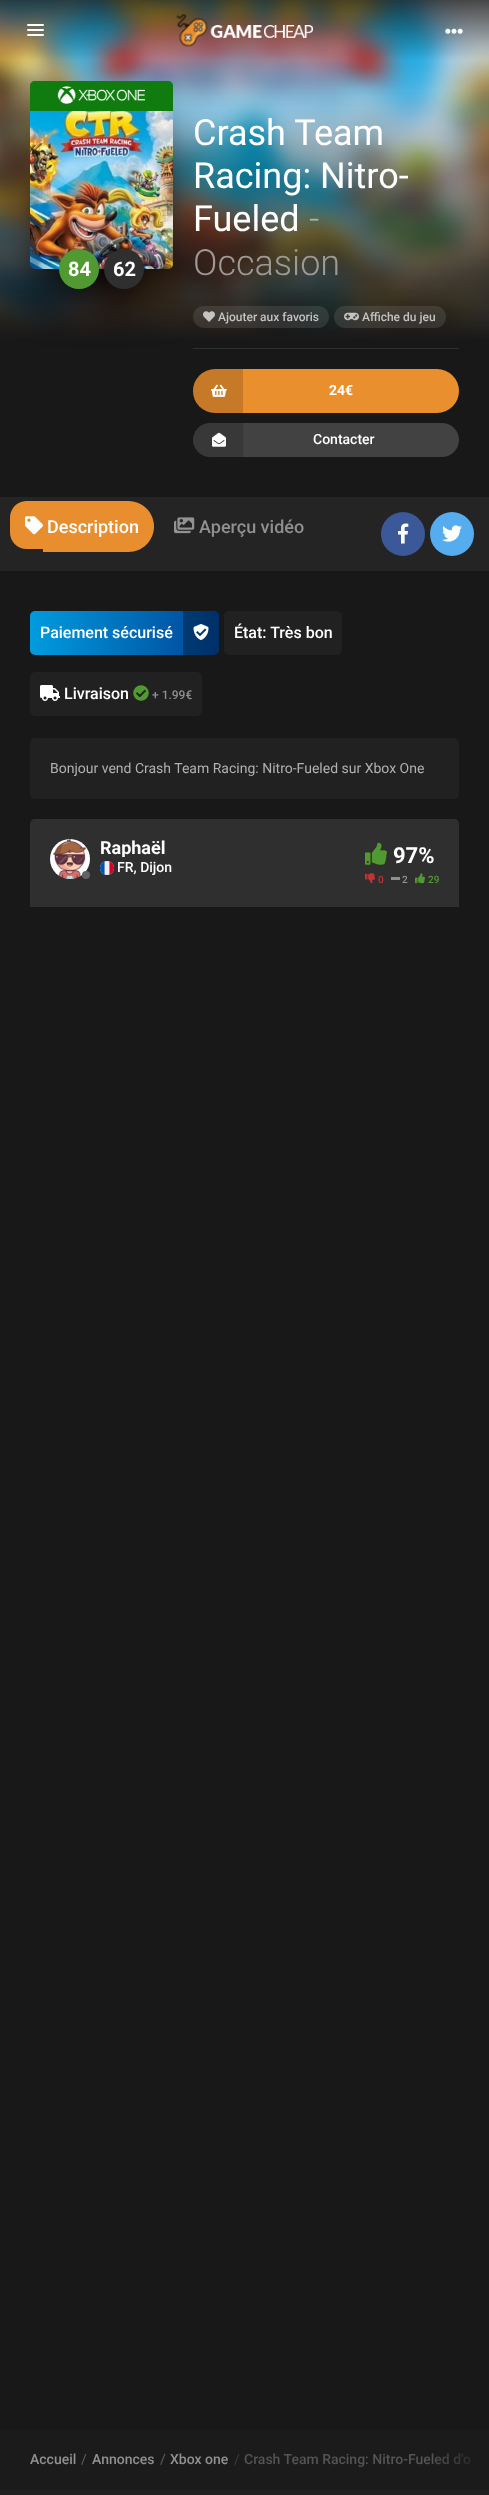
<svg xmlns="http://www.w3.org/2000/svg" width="489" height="2495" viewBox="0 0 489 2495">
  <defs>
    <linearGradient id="g1" gradientUnits="userSpaceOnUse" x1="30" y1="633" x2="219" y2="633"><stop offset="0" stop-color="#009cde"/><stop offset="1" stop-color="#004497"/></linearGradient>
    <clipPath id="clip1"><path d="M100 839h73v18H100z"/></clipPath>
    <linearGradient id="g2" gradientUnits="userSpaceOnUse" x1="429" y1="2460" x2="489" y2="2460"><stop offset="0" stop-color="#1b1b1b" stop-opacity="0"/><stop offset="1" stop-color="#1b1b1b"/></linearGradient>
  </defs>
  <rect width="100%" height="100%" fill="#191818"/>
  <image x="0" y="0" width="489" height="490" href="img/1.png"/>
  <rect x="27" y="24" width="17" height="2" rx="1" fill="#fff"/>
  <rect x="27" y="29" width="17" height="2" rx="1" fill="#fff"/>
  <rect x="27" y="34" width="17" height="2" rx="1" fill="#fff"/>
  <image x="176" y="14" width="138" height="33" href="img/2.png"/>
  <image x="445" y="28" width="18" height="6" href="img/3.png"/>
  <path d="M40 130h123v159H40z" fill="#000" filter="blur(25px)"/>
  <path d="M35 81H168C171 81 173 83 173 86V111H30V86C30 83 32 81 35 81Z" fill="#107c10"/>
  <image x="57" y="86" width="88" height="18" href="img/4.png"/>
  <image x="30" y="111" width="143" height="158" href="img/5.png"/>
  <circle cx="79" cy="269" r="20" fill="#519a31"/>
  <circle cx="124" cy="269" r="20" fill="#302f2f"/>
  <path d="M193 348h266v1H193z" fill="#302f2f"/>
  <rect x="193" y="306" width="136" height="22" rx="11" fill="#ffffff1a"/>
  <image x="203" y="311" width="12" height="11" href="img/6.png"/>
  <rect x="334" y="306" width="112" height="22" rx="11" fill="#ffffff1a"/>
  <image x="344" y="312" width="15" height="9" href="img/7.png"/>
  <rect x="193" y="369" width="266" height="44" rx="22" fill="#e98f2e"/>
  <path d="M215 369H243V413H215C203 413 193 403 193 391C193 379 203 369 215 369Z" fill="#00000026"/>
  <image x="211" y="384" width="16" height="13" href="img/8.png"/>
  <rect x="193" y="423" width="266" height="34" rx="17" fill="#424242"/>
  <path d="M210 423H243V457H210C200.5 457 193 449.5 193 440C193 430.5 200.5 423 210 423Z" fill="#00000026"/>
  <image x="212" y="432" width="14" height="15" href="img/9.png"/>
  <path d="M0 497h489v74H0z" fill="#242424"/>
  <path d="M26.5 501H43V549H26.5C17.5 549 10 541.5 10 532.5V517.5C10 508.5 17.5 501 26.5 501Z" fill="#e88e2e"/>
  <path d="M43 501H128.5C142.5 501 154 512.5 154 526.5C154 540.5 142.5 552 128.5 552H43Z" fill="#e88e2e"/>
  <image x="25" y="516" width="18" height="19" href="img/10.png"/>
  <image x="174" y="517" width="21" height="17" href="img/11.png"/>
  <circle cx="403" cy="534" r="22" fill="#3b5998"/>
  <image x="398" y="523" width="11" height="21" href="img/12.png"/>
  <circle cx="452" cy="534" r="22" fill="#55acee"/>
  <image x="442" y="525" width="20" height="17" href="img/13.png"/>
  <rect x="30" y="611" width="189" height="44" rx="5" fill="url(#g1)"/>
  <path d="M183 611H214C217 611 219 613 219 616V650C219 653 217 655 214 655H183Z" fill="#0000004d"/>
  <image x="193" y="624" width="16" height="16" href="img/14.png"/>
  <rect x="224" y="611" width="118" height="44" rx="5" fill="#212121"/>
  <rect x="30" y="672" width="172" height="44" rx="5" fill="#212121"/>
  <image x="40" y="685" width="20" height="16" href="img/15.png"/>
  <image x="133" y="685" width="16" height="16" href="img/16.png"/>
  <rect x="30" y="738" width="429" height="61" rx="5" fill="#212121"/>
  <path d="M35 819H454C457 819 459 821 459 824V907H30V824C30 821 32 819 35 819Z" fill="#302f2f"/>
  <image x="50" y="839" width="40" height="40" href="img/17.png"/>
  <circle cx="86" cy="875" r="4" fill="#636363"/>
  <image x="100" y="861" width="14" height="14" href="img/18.png"/>
  <image x="365" y="842" width="22" height="23" href="img/19.png"/>
  <image x="365" y="873" width="10" height="11" href="img/20.png"/>
  <path d="M391 877h9v3H391z" fill="#8e8e8e"/>
  <image x="415" y="873" width="10" height="11" href="img/21.png"/>
  <path d="M0 2429h489v61H0z" fill="#1b1b1b"/>
  <path d="M0 2490h489v5H0z" fill="#212121"/>
  <g font-family="Roboto" font-size="20" font-weight="bold" fill="#fff">
    <text x="68" y="276">84</text>
    <text x="113" y="276">62</text>
  </g>
  <g font-family="Roboto" font-size="36" fill="#fff">
    <text x="193" y="145">Crash Team</text>
    <text x="193" y="188">Racing: Nitro-</text>
    <text x="193" y="231">Fueled</text>
  </g>
  <text x="309" y="231" font-family="Roboto" font-size="36" font-weight="300" fill="#abb3a8">-</text>
  <text x="193" y="275" font-family="Roboto" font-size="36" font-weight="300" fill="#9d9994">Occasion</text>
  <g font-family="Roboto" font-size="12" font-weight="500" fill="#c3c3c2">
    <text x="218" y="321">Ajouter aux favoris</text>
    <text x="362" y="321">Affiche du jeu</text>
  </g>
  <text x="329" y="395" font-family="Roboto" font-size="14" font-weight="bold" fill="#fff">24€</text>
  <text x="313" y="444" font-family="Roboto" font-size="14" font-weight="500" fill="#fff">Contacter</text>
  <text x="47" y="533" font-family="Roboto" font-size="18" font-weight="500" fill="#fff">Description</text>
  <text x="199" y="533" font-family="Roboto" font-size="18" font-weight="500" fill="#909090">Aperçu vidéo</text>
  <g font-family="Roboto" font-size="16" font-weight="500" fill="#fff">
    <text x="40" y="638">Paiement sécurisé</text>
    <text x="234" y="638">État: Très bon</text>
    <text x="64" y="699">Livraison</text>
  </g>
  <text x="152" y="699" font-family="Roboto" font-size="12" font-weight="500" fill="#909090">+ 1.99€</text>
  <text x="50" y="773" font-family="Roboto" font-size="14" fill="#b1b1b1">Bonjour vend Crash Team Racing: Nitro-Fueled sur Xbox One</text>
  <g clip-path="url(#clip1)">
    <text x="100" y="854" font-family="Roboto" font-size="18" font-weight="bold" fill="#fff">Raphaël</text>
  </g>
  <text x="117" y="872" font-family="Roboto" font-size="14" font-weight="500" fill="#fff">FR, Dijon</text>
  <text x="393" y="863" font-family="Roboto" font-size="22" font-weight="bold" fill="#fff">97%</text>
  <text x="378" y="883" font-family="Roboto" font-size="10" font-weight="500" fill="#c33333">0</text>
  <text x="402" y="883" font-family="Roboto" font-size="10" font-weight="500" fill="#909090">2</text>
  <text x="428" y="883" font-family="Roboto" font-size="10" font-weight="500" fill="#519a31">29</text>
  <text x="30" y="2464" font-family="Roboto" font-size="14" font-weight="500" fill="#909090">Accueil</text>
  <text x="160" y="2464" font-family="Roboto" font-size="14" fill="#5f5f5f">/</text>
  <text x="170" y="2464" font-family="Roboto" font-size="14" font-weight="500" fill="#909090">Xbox one</text>
  <text x="234" y="2464" font-family="Roboto" font-size="14" fill="#3d3d3d">/</text>
  <text x="244" y="2464" font-family="Roboto" font-size="14" font-weight="500" fill="#545454">Crash Team Racing: Nitro-Fueled d'o</text>
  <text x="81" y="2464" font-family="Roboto" font-size="14" fill="#5f5f5f">/</text>
  <text x="92" y="2464" font-family="Roboto" font-size="14" font-weight="500" fill="#909090">Annonces</text>
  <path d="M433 2453h38v12H433z" fill="url(#g2)"/>
</svg>
